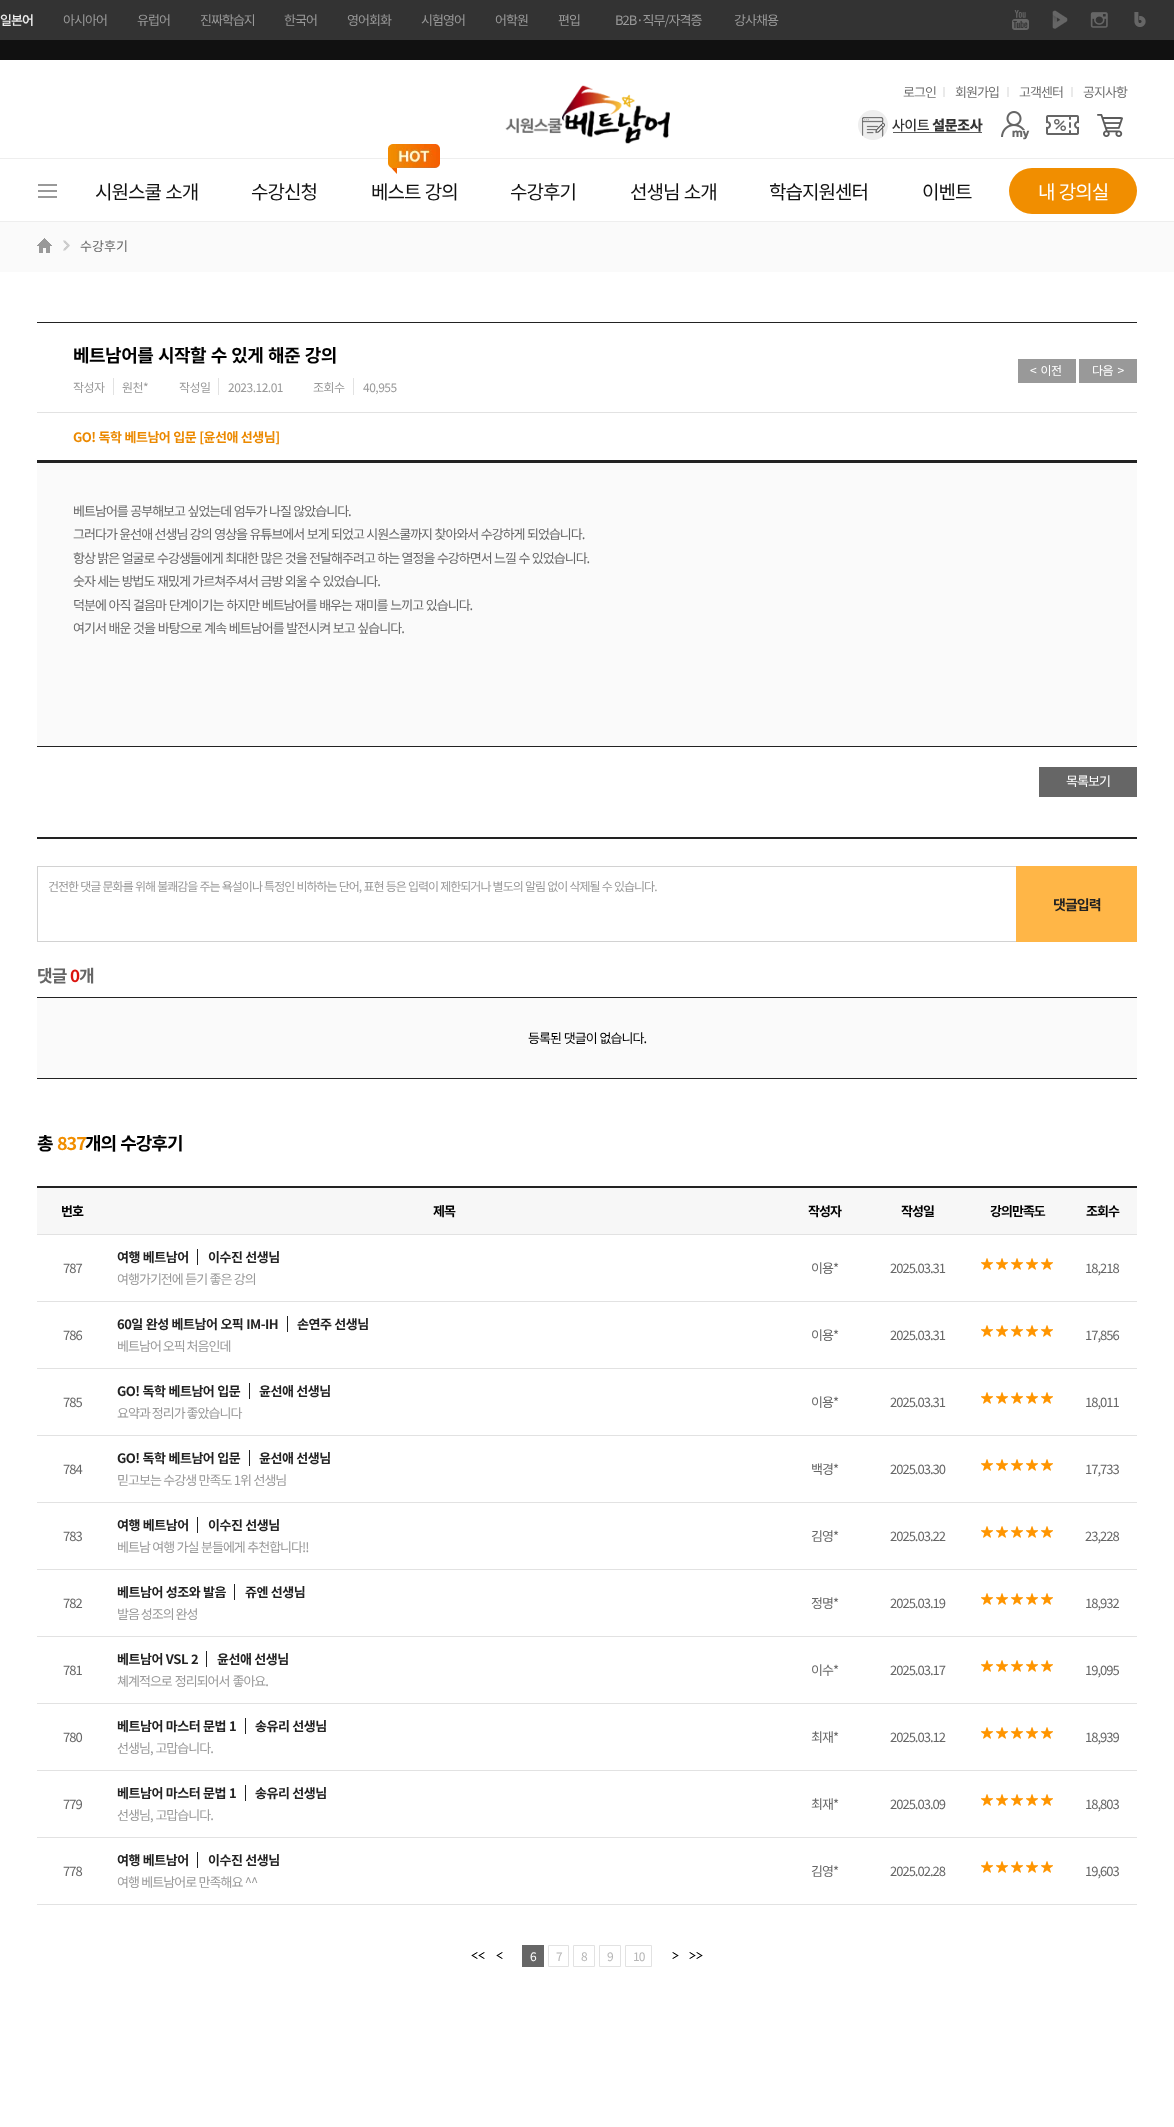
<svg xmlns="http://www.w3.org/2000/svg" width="1174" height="2127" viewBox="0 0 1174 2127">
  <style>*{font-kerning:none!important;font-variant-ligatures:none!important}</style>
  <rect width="100%" height="100%" fill="#fff"/>
  <path d="M0 0h1174v40H0z" fill="#333"/>
  <image x="1012" y="10" width="17" height="20" href="img/1.png"/>
  <image x="1052" y="10" width="16" height="19" href="img/2.png"/>
  <image x="1090" y="12" width="18" height="16" href="img/3.png"/>
  <image x="1134" y="12" width="12" height="15" href="img/4.png"/>
  <path d="M0 40h1174v20H0z" fill="#111"/>
  <image x="505" y="85" width="165" height="59" href="img/5.png"/>
  <path d="M943 87h2v10H943z" fill="#eaeaea"/>
  <path d="M1007 87h2v10H1007z" fill="#eaeaea"/>
  <path d="M1071 87h2v10H1071z" fill="#eaeaea"/>
  <image x="858" y="110" width="125" height="30" href="img/6.png"/>
  <image x="1001" y="111" width="29" height="29" href="img/7.png"/>
  <image x="1046" y="115" width="33" height="20" href="img/8.png"/>
  <image x="1097" y="114" width="26" height="23" href="img/9.png"/>
  <path d="M0 158h1174v1H0z" fill="#eee"/>
  <path d="M0 221h1174v1H0z" fill="#eee"/>
  <image x="38" y="184" width="19" height="14" href="img/10.png"/>
  <image x="388" y="144" width="52" height="30" href="img/11.png"/>
  <rect x="1009" y="168" width="128" height="46" rx="23" fill="#f18e00"/>
  <path d="M0 222h1174v50H0z" fill="#fafafa"/>
  <image x="37" y="238" width="15" height="15" href="img/12.png"/>
  <image x="63" y="240" width="7" height="11" href="img/13.png"/>
  <path d="M37 322h1100v1H37z" fill="#222"/>
  <path d="M37 460h1100v3H37z" fill="#222"/>
  <path d="M1018 359h58v24H1018z" fill="#999"/>
  <path d="M1079 359h58v24H1079z" fill="#999"/>
  <path d="M113 378h1v17H113z" fill="#e2e2e2"/>
  <path d="M218 378h1v17H218z" fill="#e2e2e2"/>
  <path d="M353 378h1v17H353z" fill="#e2e2e2"/>
  <path d="M37 412h1100v1H37z" fill="#e2e2e2"/>
  <path d="M37 746h1100v1H37z" fill="#222"/>
  <path d="M37 463h1100v283H37z" fill="#fafafa"/>
  <path d="M1039 767h98v30H1039z" fill="#666"/>
  <path d="M37 837h1100v2H37z" fill="#222"/>
  <path d="M37 866h979v1H37z" fill="#d2d2d2"/>
  <path d="M37 941h979v1H37z" fill="#d2d2d2"/>
  <path d="M37 866h1v76H37z" fill="#d2d2d2"/>
  <path d="M1016 866h121v76H1016z" fill="#ffb647"/>
  <path d="M37 998h1100v80H37z" fill="#fafafa"/>
  <path d="M37 997h1100v1H37z" fill="#222"/>
  <path d="M37 1078h1100v1H37z" fill="#222"/>
  <path d="M37 1186h1100v2H37z" fill="#222"/>
  <path d="M37 1904h1100v1H37z" fill="#e2e2e2"/>
  <path d="M37 1188h1100v46H37z" fill="#f7f7f7"/>
  <path d="M197 1249h1v16H197z" fill="#222"/>
  <image x="981" y="1258" width="72" height="12" href="img/14.png"/>
  <path d="M37 1234h1100v1H37z" fill="#e2e2e2"/>
  <path d="M287 1316h1v16H287z" fill="#222"/>
  <image x="981" y="1325" width="72" height="12" href="img/14.png"/>
  <path d="M37 1301h1100v1H37z" fill="#e2e2e2"/>
  <path d="M249 1383h1v16H249z" fill="#222"/>
  <image x="981" y="1392" width="72" height="12" href="img/14.png"/>
  <path d="M37 1368h1100v1H37z" fill="#e2e2e2"/>
  <path d="M249 1450h1v16H249z" fill="#222"/>
  <image x="981" y="1459" width="72" height="12" href="img/14.png"/>
  <path d="M37 1435h1100v1H37z" fill="#e2e2e2"/>
  <path d="M197 1517h1v16H197z" fill="#222"/>
  <image x="981" y="1526" width="72" height="12" href="img/14.png"/>
  <path d="M37 1502h1100v1H37z" fill="#e2e2e2"/>
  <path d="M234 1584h1v16H234z" fill="#222"/>
  <image x="981" y="1593" width="72" height="12" href="img/14.png"/>
  <path d="M37 1569h1100v1H37z" fill="#e2e2e2"/>
  <path d="M206 1651h1v16H206z" fill="#222"/>
  <image x="981" y="1660" width="72" height="12" href="img/14.png"/>
  <path d="M37 1636h1100v1H37z" fill="#e2e2e2"/>
  <path d="M245 1718h1v16H245z" fill="#222"/>
  <image x="981" y="1727" width="72" height="12" href="img/14.png"/>
  <path d="M37 1703h1100v1H37z" fill="#e2e2e2"/>
  <path d="M245 1785h1v16H245z" fill="#222"/>
  <image x="981" y="1794" width="72" height="12" href="img/14.png"/>
  <path d="M37 1770h1100v1H37z" fill="#e2e2e2"/>
  <path d="M197 1852h1v16H197z" fill="#222"/>
  <image x="981" y="1861" width="72" height="12" href="img/14.png"/>
  <path d="M37 1837h1100v1H37z" fill="#e2e2e2"/>
  <image x="471" y="1952" width="14" height="7" href="img/15.png"/>
  <image x="496" y="1952" width="7" height="7" href="img/16.png"/>
  <path d="M522 1945h22v22H522z" fill="#666"/>
  <path d="M548.5 1945.5h20v21H548.5z" fill="none" stroke="#e2e2e2"/>
  <path d="M573.5 1945.5h21v21H573.5z" fill="none" stroke="#e2e2e2"/>
  <path d="M599.5 1945.5h21v21H599.5z" fill="none" stroke="#e2e2e2"/>
  <path d="M625.5 1945.5h26v21H625.5z" fill="none" stroke="#e2e2e2"/>
  <image x="672" y="1952" width="7" height="7" href="img/17.png"/>
  <image x="689" y="1952" width="14" height="7" href="img/18.png"/>
  <text x="0" y="25" font-family="Noto Sans KR" font-size="13" font-weight="500" letter-spacing="-1" fill="#eee">일본어</text>
  <g font-family="Noto Sans KR" font-size="13" letter-spacing="-1" fill="#999">
    <text x="63" y="25">아시아어</text>
    <text x="137" y="25">유럽어</text>
    <text x="200" y="25">진짜학습지</text>
    <text x="284" y="25">한국어</text>
    <text x="347" y="25">영어회화</text>
    <text x="421" y="25">시험영어</text>
    <text x="495" y="25">어학원</text>
    <text x="558" y="25">편입</text>
    <text x="615" y="25">B2B·직무/자격증</text>
    <text x="734" y="25">강사채용</text>
  </g>
  <g font-family="Noto Sans KR" font-size="13" letter-spacing="-1" fill="#707070">
    <text x="903" y="97">로그인</text>
    <text x="955" y="97">회원가입</text>
    <text x="1019" y="97">고객센터</text>
    <text x="1083" y="97">공지사항</text>
  </g>
  <g font-family="Noto Sans KR" font-size="19" letter-spacing="-1" fill="#111">
    <text x="95" y="199" word-spacing="1">시원스쿨 소개</text>
    <text x="251" y="199">수강신청</text>
    <text x="371" y="199" word-spacing="1">베스트 강의</text>
    <text x="510" y="199">수강후기</text>
    <text x="630" y="199" word-spacing="1">선생님 소개</text>
    <text x="769" y="199">학습지원센터</text>
    <text x="922" y="199">이벤트</text>
  </g>
  <text x="1038" y="199" word-spacing="1" font-family="Noto Sans KR" font-size="19" letter-spacing="-1" fill="#fff">내 강의실</text>
  <text x="80" y="251" font-family="Noto Sans KR" font-size="13" fill="#666">수강후기</text>
  <text x="73" y="362" word-spacing="1" font-family="Noto Sans KR" font-size="18" font-weight="bold" letter-spacing="-0.5" fill="#000">베트남어를 시작할 수 있게 해준 강의</text>
  <g font-family="Noto Sans KR" font-size="12" letter-spacing="-0.5" fill="#fff">
    <text x="1030" y="375" xml:space="preserve">&lt;  이전</text>
    <text x="1092" y="375" xml:space="preserve">다음  &gt;</text>
  </g>
  <g font-family="Noto Sans KR" font-size="12" letter-spacing="-0.5" fill="#999">
    <text x="73" y="392">작성자</text>
    <text x="122" y="392">원천*</text>
    <text x="179" y="392">작성일</text>
    <text x="228" y="392">2023.12.01</text>
    <text x="313" y="392">조회수</text>
    <text x="363" y="392">40,955</text>
  </g>
  <text x="73" y="442" word-spacing="0.5" font-family="Noto Sans KR" font-size="13" font-weight="bold" letter-spacing="-0.5" fill="#eb8900">GO! 독학 베트남어 입문 [윤선애 선생님]</text>
  <g font-family="Noto Sans KR" font-size="13" letter-spacing="-1" fill="#666">
    <text x="73" y="516" word-spacing="0.5">베트남어를 공부해보고 싶었는데 엄두가 나질 않았습니다.</text>
    <text x="73" y="539" word-spacing="0.5">그러다가 윤선애 선생님 강의 영상을 유튜브에서 보게 되었고 시원스쿨까지 찾아와서 수강하게 되었습니다.</text>
    <text x="73" y="563" word-spacing="0.5">항상 밝은 얼굴로 수강생들에게 최대한 많은 것을 전달해주려고 하는 열정을 수강하면서 느낄 수 있었습니다.</text>
    <text x="73" y="586" word-spacing="0.5">숫자 세는 방법도 재밌게 가르쳐주셔서 금방 외울 수 있었습니다.</text>
    <text x="73" y="610" word-spacing="0.75">덕분에 아직 걸음마 단계이기는 하지만 베트남어를 배우는 재미를 느끼고 있습니다.</text>
    <text x="73" y="633" word-spacing="0.75">여기서 배운 것을 바탕으로 계속 베트남어를 발전시켜 보고 싶습니다.</text>
  </g>
  <text x="1066" y="786" font-family="Noto Sans KR" font-size="13" letter-spacing="-1" fill="#fff">목록보기</text>
  <text x="48" y="891" word-spacing="0.5" font-family="Noto Sans KR" font-size="12" letter-spacing="-1" fill="#999">건전한 댓글 문화를 위해 불쾌감을 주는 욕설이나 특정인 비하하는 단어, 표현 등은 입력이 제한되거나 별도의 알림 없이 삭제될 수 있습니다.</text>
  <text x="1053" y="910" font-family="Noto Sans KR" font-size="14" font-weight="bold" letter-spacing="-1" fill="#222">댓글입력</text>
  <text x="37" y="982" font-family="Noto Sans KR" font-size="17" font-weight="bold" letter-spacing="-1" fill="#666">댓글</text>
  <text x="70" y="982" font-family="Noto Sans KR" font-size="17" font-weight="bold" letter-spacing="-1" fill="#db140f">0</text>
  <text x="79" y="982" font-family="Noto Sans KR" font-size="17" font-weight="bold" letter-spacing="-1" fill="#666">개</text>
  <text x="528" y="1043" word-spacing="1" font-family="Noto Sans KR" font-size="13" letter-spacing="-1" fill="#000">등록된 댓글이 없습니다.</text>
  <text x="37" y="1150" font-family="Noto Sans KR" font-size="18" font-weight="bold" letter-spacing="-1" fill="#000">총</text>
  <text x="57" y="1150" font-family="Noto Sans KR" font-size="18" font-weight="bold" letter-spacing="-1" fill="#f18e00">837</text>
  <text x="85" y="1150" word-spacing="1" font-family="Noto Sans KR" font-size="18" font-weight="bold" letter-spacing="-1" fill="#000">개의 수강후기</text>
  <g font-family="Noto Sans KR" font-size="13" font-weight="bold" letter-spacing="-1" fill="#000">
    <text x="61" y="1216">번호</text>
    <text x="433" y="1216">제목</text>
    <text x="808" y="1216">작성자</text>
    <text x="901" y="1216">작성일</text>
    <text x="990" y="1216">강의만족도</text>
    <text x="1086" y="1216">조회수</text>
  </g>
  <text x="63" y="1273" font-family="Noto Sans KR" font-size="13" letter-spacing="-1" fill="#666">787</text>
  <g font-family="Noto Sans KR" font-size="13" font-weight="bold" letter-spacing="-0.5" fill="#222">
    <text x="117" y="1262" word-spacing="0.5">여행 베트남어</text>
    <text x="208" y="1262" word-spacing="0.5">이수진 선생님</text>
  </g>
  <text x="117" y="1284" word-spacing="0.5" font-family="Noto Sans KR" font-size="13" letter-spacing="-1" fill="#999">여행가기전에 듣기 좋은 강의</text>
  <g font-family="Noto Sans KR" font-size="13" letter-spacing="-1" fill="#666">
    <text x="811" y="1273">이용*</text>
    <text x="890" y="1273">2025.03.31</text>
    <text x="1085" y="1273">18,218</text>
    <text x="63" y="1340">786</text>
  </g>
  <g font-family="Noto Sans KR" font-size="13" font-weight="bold" letter-spacing="-0.5" fill="#222">
    <text x="117" y="1329" word-spacing="0.5">60일 완성 베트남어 오픽 IM-IH</text>
    <text x="297" y="1329" word-spacing="0.5">손연주 선생님</text>
  </g>
  <text x="117" y="1351" font-family="Noto Sans KR" font-size="13" letter-spacing="-1" fill="#999">베트남어 오픽 처음인데</text>
  <g font-family="Noto Sans KR" font-size="13" letter-spacing="-1" fill="#666">
    <text x="811" y="1340">이용*</text>
    <text x="890" y="1340">2025.03.31</text>
    <text x="1085" y="1340">17,856</text>
    <text x="63" y="1407">785</text>
  </g>
  <g font-family="Noto Sans KR" font-size="13" font-weight="bold" letter-spacing="-0.5" fill="#222">
    <text x="117" y="1396" word-spacing="0.5">GO! 독학 베트남어 입문</text>
    <text x="259" y="1396" word-spacing="0.5">윤선애 선생님</text>
  </g>
  <text x="117" y="1418" font-family="Noto Sans KR" font-size="13" letter-spacing="-1" fill="#999">요약과 정리가 좋았습니다</text>
  <g font-family="Noto Sans KR" font-size="13" letter-spacing="-1" fill="#666">
    <text x="811" y="1407">이용*</text>
    <text x="890" y="1407">2025.03.31</text>
    <text x="1085" y="1407">18,011</text>
    <text x="63" y="1474">784</text>
  </g>
  <g font-family="Noto Sans KR" font-size="13" font-weight="bold" letter-spacing="-0.5" fill="#222">
    <text x="117" y="1463" word-spacing="0.5">GO! 독학 베트남어 입문</text>
    <text x="259" y="1463" word-spacing="0.5">윤선애 선생님</text>
  </g>
  <text x="117" y="1485" word-spacing="0.5" font-family="Noto Sans KR" font-size="13" letter-spacing="-1" fill="#999">믿고보는 수강생 만족도 1위 선생님</text>
  <g font-family="Noto Sans KR" font-size="13" letter-spacing="-1" fill="#666">
    <text x="811" y="1474">백경*</text>
    <text x="890" y="1474">2025.03.30</text>
    <text x="1085" y="1474">17,733</text>
    <text x="63" y="1541">783</text>
  </g>
  <g font-family="Noto Sans KR" font-size="13" font-weight="bold" letter-spacing="-0.5" fill="#222">
    <text x="117" y="1530" word-spacing="0.5">여행 베트남어</text>
    <text x="208" y="1530" word-spacing="0.5">이수진 선생님</text>
  </g>
  <text x="117" y="1552" word-spacing="0.5" font-family="Noto Sans KR" font-size="13" letter-spacing="-1" fill="#999">베트남 여행 가실 분들에게 추천합니다!!</text>
  <g font-family="Noto Sans KR" font-size="13" letter-spacing="-1" fill="#666">
    <text x="811" y="1541">김영*</text>
    <text x="890" y="1541">2025.03.22</text>
    <text x="1085" y="1541">23,228</text>
    <text x="63" y="1608">782</text>
  </g>
  <g font-family="Noto Sans KR" font-size="13" font-weight="bold" letter-spacing="-0.5" fill="#222">
    <text x="117" y="1597" word-spacing="0.5">베트남어 성조와 발음</text>
    <text x="245" y="1597" word-spacing="0.5">쥬엔 선생님</text>
  </g>
  <text x="117" y="1619" font-family="Noto Sans KR" font-size="13" letter-spacing="-1" fill="#999">발음 성조의 완성</text>
  <g font-family="Noto Sans KR" font-size="13" letter-spacing="-1" fill="#666">
    <text x="811" y="1608">정명*</text>
    <text x="890" y="1608">2025.03.19</text>
    <text x="1085" y="1608">18,932</text>
    <text x="63" y="1675">781</text>
  </g>
  <g font-family="Noto Sans KR" font-size="13" font-weight="bold" letter-spacing="-0.5" fill="#222">
    <text x="117" y="1664" word-spacing="0.5">베트남어 VSL 2</text>
    <text x="217" y="1664" word-spacing="0.5">윤선애 선생님</text>
  </g>
  <text x="117" y="1686" word-spacing="1" font-family="Noto Sans KR" font-size="13" letter-spacing="-1" fill="#999">쳬계적으로 정리되어서 좋아요.</text>
  <g font-family="Noto Sans KR" font-size="13" letter-spacing="-1" fill="#666">
    <text x="811" y="1675">이수*</text>
    <text x="890" y="1675">2025.03.17</text>
    <text x="1085" y="1675">19,095</text>
    <text x="63" y="1742">780</text>
  </g>
  <g font-family="Noto Sans KR" font-size="13" font-weight="bold" letter-spacing="-0.5" fill="#222">
    <text x="117" y="1731" word-spacing="0.5">베트남어 마스터 문법 1</text>
    <text x="255" y="1731" word-spacing="0.5">송유리 선생님</text>
  </g>
  <text x="117" y="1753" word-spacing="1" font-family="Noto Sans KR" font-size="13" letter-spacing="-1" fill="#999">선생님, 고맙습니다.</text>
  <g font-family="Noto Sans KR" font-size="13" letter-spacing="-1" fill="#666">
    <text x="811" y="1742">최재*</text>
    <text x="890" y="1742">2025.03.12</text>
    <text x="1085" y="1742">18,939</text>
    <text x="63" y="1809">779</text>
  </g>
  <g font-family="Noto Sans KR" font-size="13" font-weight="bold" letter-spacing="-0.5" fill="#222">
    <text x="117" y="1798" word-spacing="0.5">베트남어 마스터 문법 1</text>
    <text x="255" y="1798" word-spacing="0.5">송유리 선생님</text>
  </g>
  <text x="117" y="1820" word-spacing="1" font-family="Noto Sans KR" font-size="13" letter-spacing="-1" fill="#999">선생님, 고맙습니다.</text>
  <g font-family="Noto Sans KR" font-size="13" letter-spacing="-1" fill="#666">
    <text x="811" y="1809">최재*</text>
    <text x="890" y="1809">2025.03.09</text>
    <text x="1085" y="1809">18,803</text>
    <text x="63" y="1876">778</text>
  </g>
  <g font-family="Noto Sans KR" font-size="13" font-weight="bold" letter-spacing="-0.5" fill="#222">
    <text x="117" y="1865" word-spacing="0.5">여행 베트남어</text>
    <text x="208" y="1865" word-spacing="0.5">이수진 선생님</text>
  </g>
  <text x="117" y="1887" word-spacing="0.5" font-family="Noto Sans KR" font-size="13" letter-spacing="-1" fill="#999">여행 베트남어로 만족해요 ^^</text>
  <g font-family="Noto Sans KR" font-size="13" letter-spacing="-1" fill="#666">
    <text x="811" y="1876">김영*</text>
    <text x="890" y="1876">2025.02.28</text>
    <text x="1085" y="1876">19,603</text>
  </g>
  <text x="530" y="1961" font-family="Noto Sans KR" font-size="12" letter-spacing="-1" fill="#fff">6</text>
  <g font-family="Noto Sans KR" font-size="12" letter-spacing="-1" fill="#b6b6b6">
    <text x="556" y="1961">7</text>
    <text x="581" y="1961">8</text>
    <text x="607" y="1961">9</text>
    <text x="633" y="1961">10</text>
  </g>
</svg>
